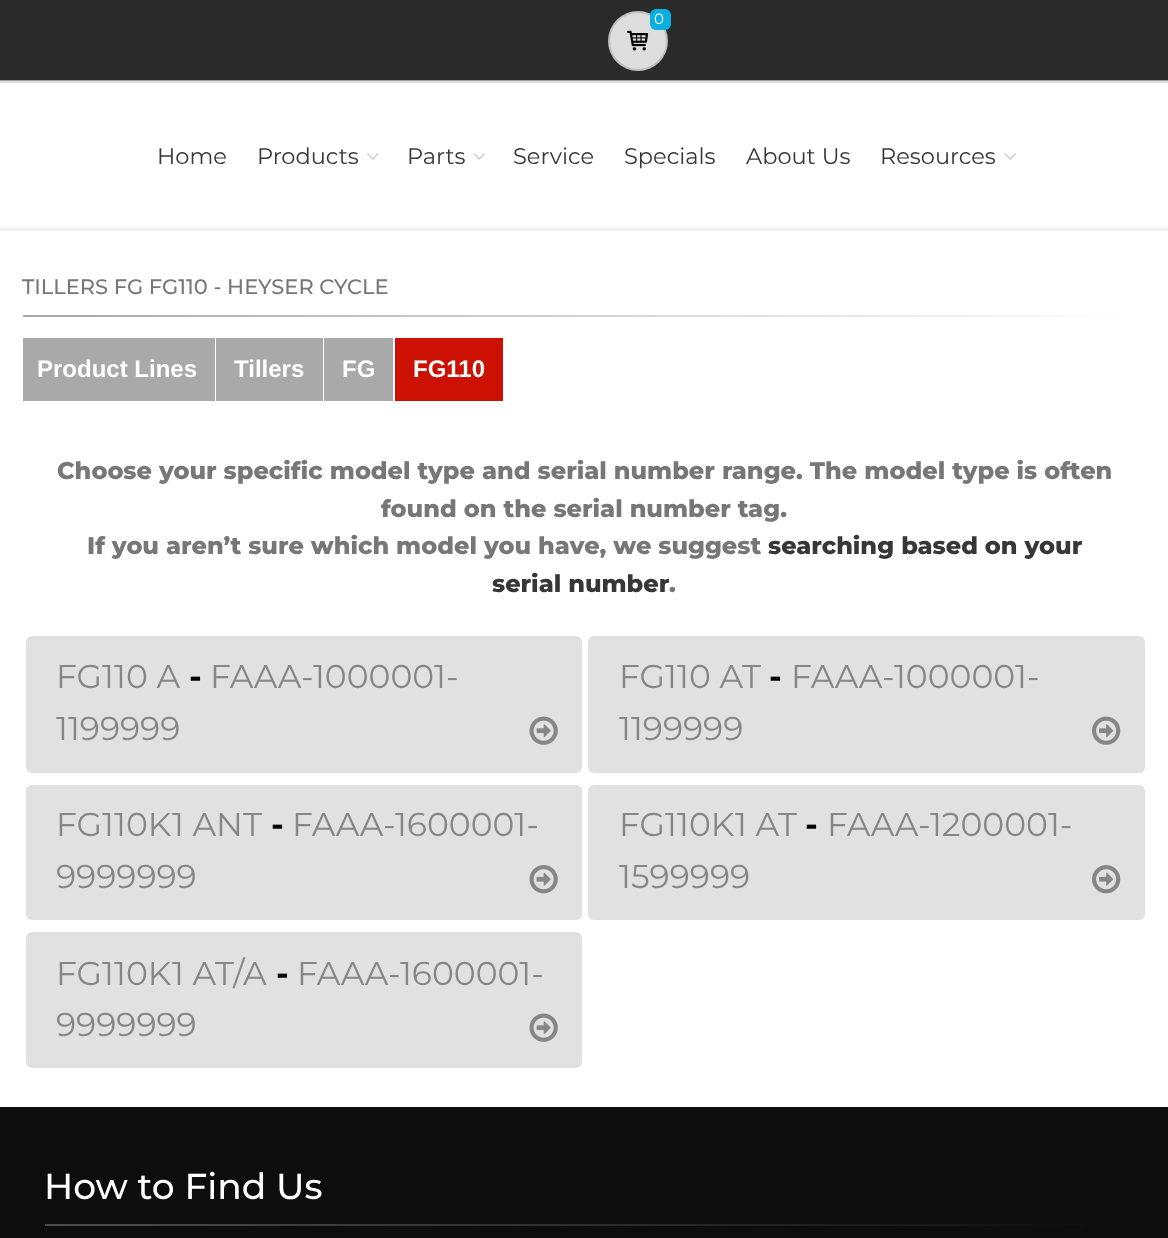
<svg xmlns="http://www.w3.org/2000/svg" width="1168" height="1238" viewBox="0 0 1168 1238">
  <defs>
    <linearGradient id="g1" gradientUnits="userSpaceOnUse" x1="23" y1="316" x2="1148" y2="316"><stop offset="0" stop-color="#a7a7a7"/><stop offset="1" stop-color="#fff"/></linearGradient>
    <linearGradient id="g2" gradientUnits="userSpaceOnUse" x1="45" y1="1225" x2="1125" y2="1225"><stop offset="0" stop-color="#4e4e4e"/><stop offset="1" stop-color="#0d0d0d"/></linearGradient>
  </defs>
  <rect width="100%" height="100%" fill="#fff"/>
  <path d="M0 0h1168v80H0z" fill="#2a2a2a"/>
  <path d="M0 80h1168v1H0z" fill="#a1a1a1"/>
  <circle cx="638" cy="41" r="30" fill="#ddd"/>
  <circle cx="638" cy="41" r="29" fill="none" stroke="#00000026" stroke-width="2"/>
  <rect x="650" y="9" width="21" height="21" rx="6" fill="#09afdf"/>
  <image x="627" y="30" width="22" height="21" href="img/1.png"/>
  <path d="M0 81h1168v2H0z" fill="#ddd"/>
  <path d="M0 228h1168v3H0z" fill="#f1f1f1"/>
  <image x="367" y="153" width="12" height="7" href="img/2.png"/>
  <image x="473" y="153" width="12" height="7" href="img/3.png"/>
  <image x="1004" y="153" width="12" height="7" href="img/3.png"/>
  <path d="M23 315h1093v2H23z" fill="url(#g1)"/>
  <path d="M23 338h192v63H23z" fill="#a9a9a9"/>
  <path d="M216 338h107v63H216z" fill="#a9a9a9"/>
  <path d="M324 338h69v63H324z" fill="#a9a9a9"/>
  <path d="M395 338h108v63H395z" fill="#cc1001"/>
  <rect x="26" y="636" width="556" height="137" rx="6" fill="#e1e1e1"/>
  <image x="529" y="716" width="29" height="29" href="img/4.png"/>
  <rect x="588" y="636" width="557" height="137" rx="6" fill="#e1e1e1"/>
  <image x="1092" y="716" width="29" height="29" href="img/5.png"/>
  <rect x="26" y="785" width="556" height="135" rx="6" fill="#e1e1e1"/>
  <image x="529" y="865" width="29" height="29" href="img/6.png"/>
  <rect x="588" y="785" width="557" height="135" rx="6" fill="#e1e1e1"/>
  <image x="1092" y="865" width="29" height="29" href="img/7.png"/>
  <rect x="26" y="932" width="556" height="136" rx="6" fill="#e1e1e1"/>
  <image x="529" y="1013" width="29" height="29" href="img/4.png"/>
  <path d="M0 1107h1168v131H0z" fill="#0d0d0d"/>
  <path d="M45 1224h1038v2H45z" fill="url(#g2)"/>
  <text x="654" y="24" font-family="Montserrat" font-size="15" fill="#fff">0</text>
  <g font-family="Montserrat" font-size="22.5" fill="#373737">
    <text x="157" y="164">Home</text>
    <text x="257" y="164">Products</text>
    <text x="407" y="164">Parts</text>
    <text x="513" y="164">Service</text>
    <text x="624" y="164">Specials</text>
    <text x="746" y="164">About Us</text>
    <text x="880" y="164">Resources</text>
  </g>
  <text x="22" y="294" font-family="Montserrat" font-size="21" font-weight="500" fill="#777">TILLERS FG FG110 - HEYSER CYCLE</text>
  <g font-family="Liberation Sans" font-size="24" font-weight="bold" fill="#fff">
    <text x="37" y="377">Product Lines</text>
    <text x="234" y="377">Tillers</text>
    <text x="342" y="377">FG</text>
    <text x="413" y="377">FG110</text>
  </g>
  <g font-family="Montserrat" font-size="24" font-weight="800" fill="#777">
    <text x="57" y="479">Choose your specific model type and serial number range. The model type is often</text>
    <text x="381" y="517">found on the serial number tag.</text>
    <text x="87" y="554">If you aren’t sure which model you have, we suggest</text>
  </g>
  <g font-family="Montserrat" font-size="24" font-weight="800" fill="#373737">
    <text x="768" y="554">searching based on your</text>
    <text x="492" y="592">serial number</text>
  </g>
  <text x="669" y="592" font-family="Montserrat" font-size="24" font-weight="800" fill="#777">.</text>
  <text x="56" y="688" font-family="Montserrat" font-size="33" fill="#868686">FG110 A</text>
  <text x="189" y="688" font-family="Montserrat" font-size="33" font-weight="bold" fill="#000">-</text>
  <g font-family="Montserrat" font-size="33" fill="#868686">
    <text x="210" y="688">FAAA-1000001-</text>
    <text x="56" y="740">1199999</text>
    <text x="619" y="688">FG110 AT</text>
  </g>
  <text x="769" y="688" font-family="Montserrat" font-size="33" font-weight="bold" fill="#000">-</text>
  <g font-family="Montserrat" font-size="33" fill="#868686">
    <text x="791" y="688">FAAA-1000001-</text>
    <text x="619" y="740">1199999</text>
    <text x="56" y="836">FG110K1 ANT</text>
  </g>
  <text x="271" y="836" font-family="Montserrat" font-size="33" font-weight="bold" fill="#000">-</text>
  <g font-family="Montserrat" font-size="33" fill="#868686">
    <text x="292" y="836">FAAA-1600001-</text>
    <text x="56" y="888">9999999</text>
    <text x="619" y="836">FG110K1 AT</text>
  </g>
  <text x="805" y="836" font-family="Montserrat" font-size="33" font-weight="bold" fill="#000">-</text>
  <g font-family="Montserrat" font-size="33" fill="#868686">
    <text x="827" y="836">FAAA-1200001-</text>
    <text x="619" y="888">1599999</text>
    <text x="56" y="985">FG110K1 AT/A</text>
  </g>
  <text x="276" y="985" font-family="Montserrat" font-size="33" font-weight="bold" fill="#000">-</text>
  <g font-family="Montserrat" font-size="33" fill="#868686">
    <text x="297" y="985">FAAA-1600001-</text>
    <text x="56" y="1036">9999999</text>
  </g>
  <text x="44" y="1199" font-family="Montserrat" font-size="36" font-weight="500" fill="#fff">How to Find Us</text>
</svg>
